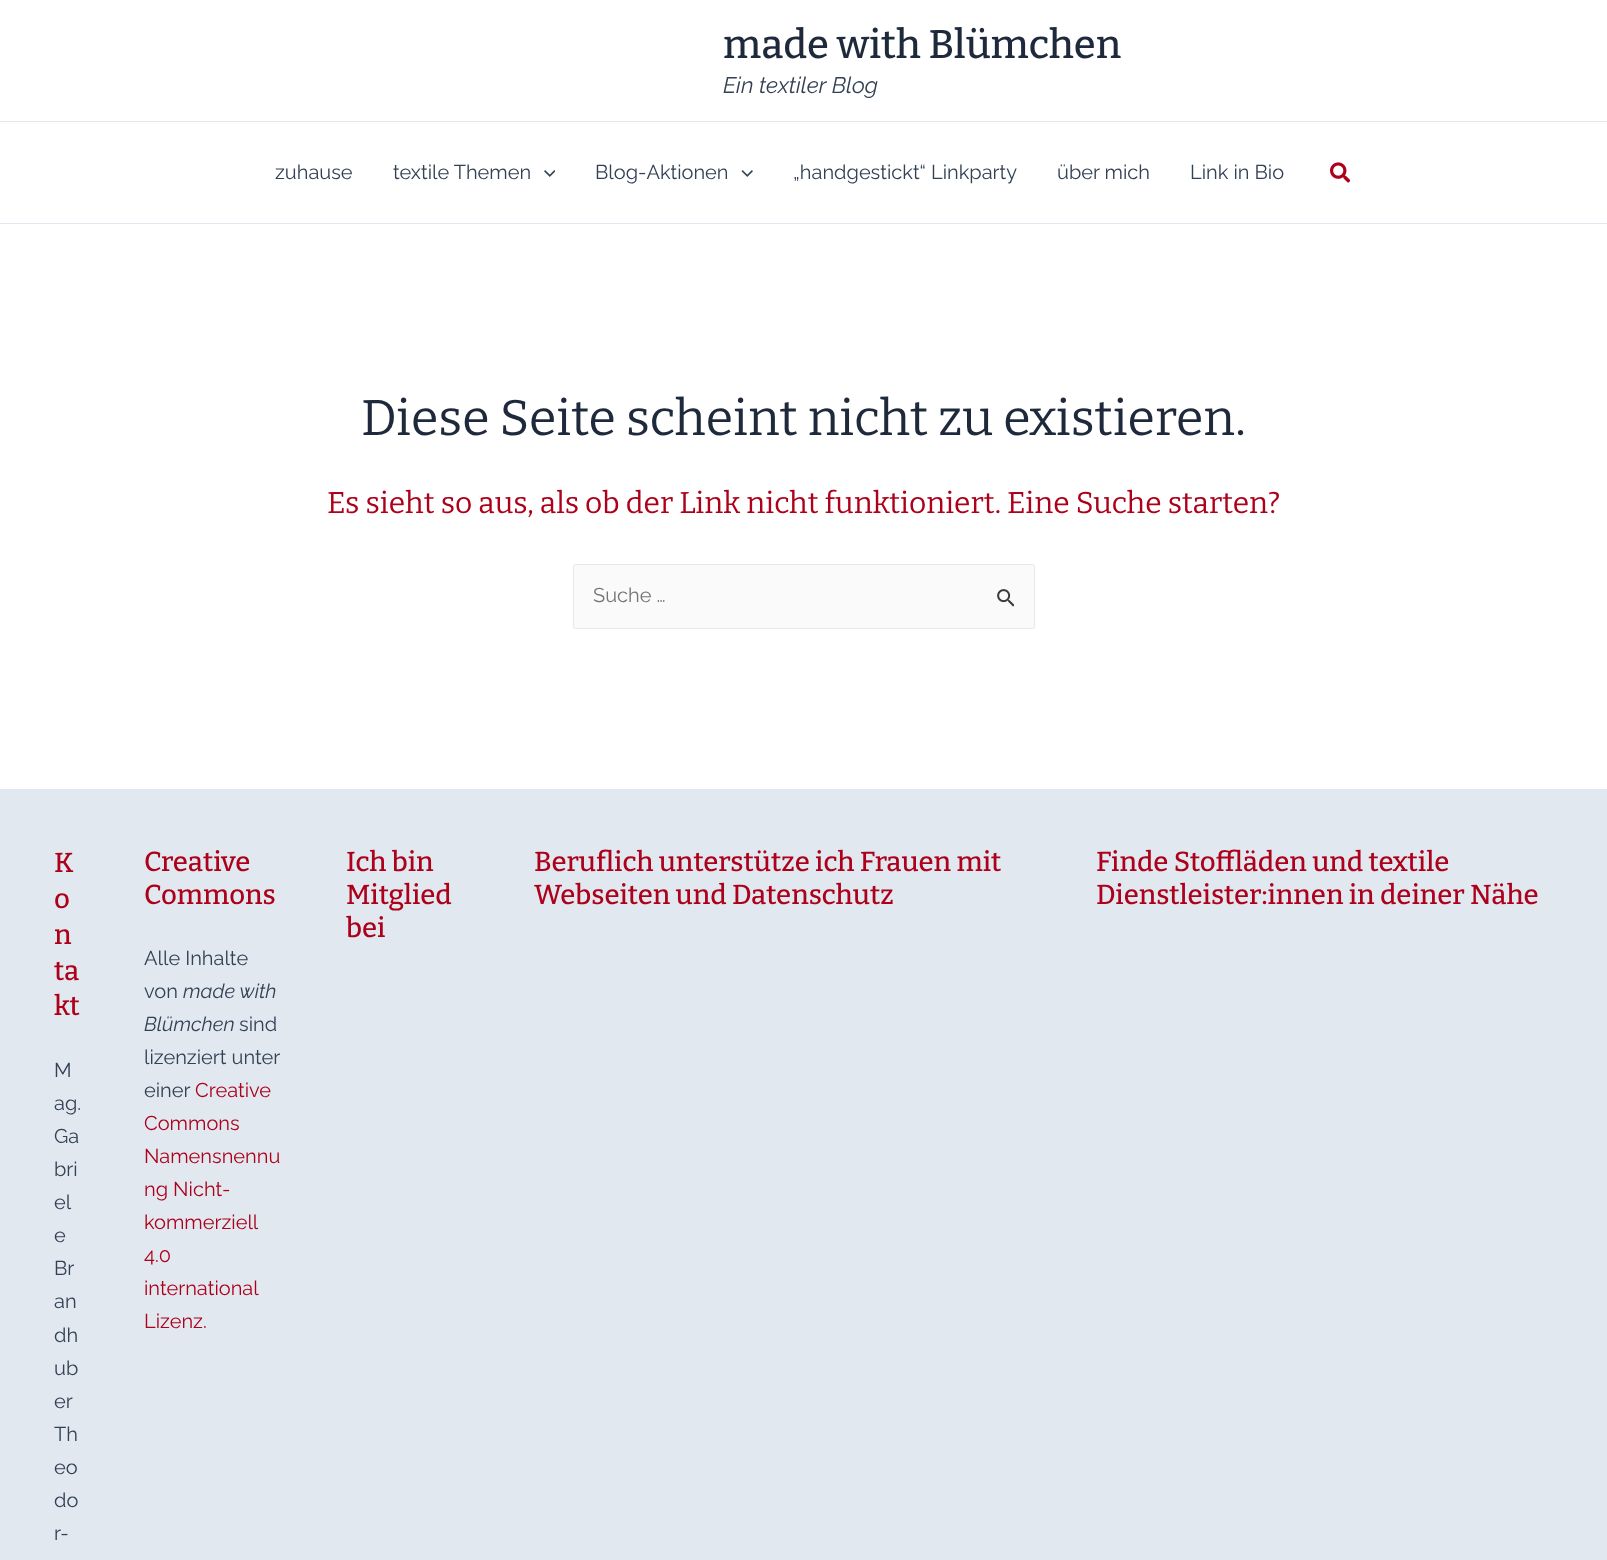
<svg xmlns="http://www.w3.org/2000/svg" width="1607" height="1560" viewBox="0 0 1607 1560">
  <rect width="100%" height="100%" fill="#fff"/>
  <path d="M0 121h1607v1H0z" fill="#e2e8f0"/>
  <path d="M0 223h1607v1H0z" fill="#e2e8f0"/>
  <image x="544" y="170" width="11" height="7" href="img/1.png"/>
  <image x="741" y="170" width="12" height="7" href="img/2.png"/>
  <image x="1330" y="162" width="20" height="21" href="img/3.png"/>
  <rect x="573.5" y="564.5" width="461" height="64" rx="2" fill="#fafafa" stroke="#e2e8f0"/>
  <image x="997" y="589" width="17" height="18" href="img/4.png"/>
  <path d="M0 789h1607v771H0z" fill="#e2e8f0"/>
  <text x="723" y="58" font-family="Bitter" font-size="40" font-weight="500" fill="#1e293b">made with Blümchen</text>
  <text x="723" y="93" font-family="Raleway" font-size="22.5" font-style="italic" fill="#334155">Ein textiler Blog</text>
  <g font-family="Raleway" font-size="20" fill="#334155">
    <text x="275" y="179">zuhause</text>
    <text x="393" y="179">textile Themen</text>
    <text x="595" y="179">Blog-Aktionen</text>
    <text x="793" y="179">„handgestickt“ Linkparty</text>
    <text x="1057" y="179">über mich</text>
    <text x="1190" y="179">Link in Bio</text>
  </g>
  <text x="361" y="435" font-family="Bitter" font-size="50" fill="#1e293b">Diese Seite scheint nicht zu existieren.</text>
  <text x="327" y="513" font-family="Bitter" font-size="30" fill="#ad001a">Es sieht so aus, als ob der Link nicht funktioniert. Eine Suche starten?</text>
  <text x="593" y="602" font-family="Raleway" font-size="20" fill="#757575">Suche …</text>
  <g font-family="Bitter" font-size="27.5" font-weight="500" fill="#ad001a">
    <text x="54" y="872">K</text>
    <text x="54" y="908">o</text>
    <text x="54" y="944">n</text>
    <text x="54" y="980">ta</text>
    <text x="54" y="1015">kt</text>
  </g>
  <g font-family="Raleway" font-size="20" fill="#334155">
    <text x="54" y="1077">M</text>
    <text x="54" y="1110">ag.</text>
    <text x="54" y="1143">Ga</text>
    <text x="54" y="1176">bri</text>
    <text x="54" y="1209">el</text>
    <text x="54" y="1242">e</text>
    <text x="54" y="1275">Br</text>
    <text x="54" y="1308">an</text>
    <text x="54" y="1342">dh</text>
    <text x="54" y="1375">ub</text>
    <text x="54" y="1408">er</text>
    <text x="54" y="1441">Th</text>
    <text x="54" y="1474">eo</text>
    <text x="54" y="1507">do</text>
    <text x="54" y="1540">r-</text>
  </g>
  <g font-family="Bitter" font-size="27.5" font-weight="500" fill="#ad001a">
    <text x="144" y="871">Creative</text>
    <text x="144" y="904">Commons</text>
  </g>
  <g font-family="Raleway" font-size="20" fill="#334155">
    <text x="144" y="965">Alle Inhalte</text>
    <text x="144" y="998">von</text>
  </g>
  <g font-family="Raleway" font-size="20" font-style="italic" fill="#334155">
    <text x="183" y="998">made with</text>
    <text x="144" y="1031">Blümchen</text>
  </g>
  <g font-family="Raleway" font-size="20" fill="#334155">
    <text x="239" y="1031">sind</text>
    <text x="144" y="1064">lizenziert unter</text>
    <text x="144" y="1097">einer</text>
  </g>
  <g font-family="Raleway" font-size="20" fill="#ad001a">
    <text x="195" y="1097">Creative</text>
    <text x="144" y="1130">Commons</text>
    <text x="144" y="1163">Namensnennu</text>
    <text x="144" y="1196">ng Nicht-</text>
    <text x="144" y="1229">kommerziell</text>
    <text x="144" y="1262">4.0</text>
    <text x="144" y="1295">international</text>
    <text x="144" y="1328">Lizenz.</text>
  </g>
  <g font-family="Bitter" font-size="27.5" font-weight="500" fill="#ad001a">
    <text x="346" y="871">Ich bin</text>
    <text x="346" y="904">Mitglied</text>
    <text x="346" y="937">bei</text>
    <text x="534" y="871">Beruflich unterstütze ich Frauen mit</text>
    <text x="534" y="904">Webseiten und Datenschutz</text>
    <text x="1096" y="871">Finde Stoffläden und textile</text>
    <text x="1096" y="904">Dienstleister:innen in deiner Nähe</text>
  </g>
</svg>
